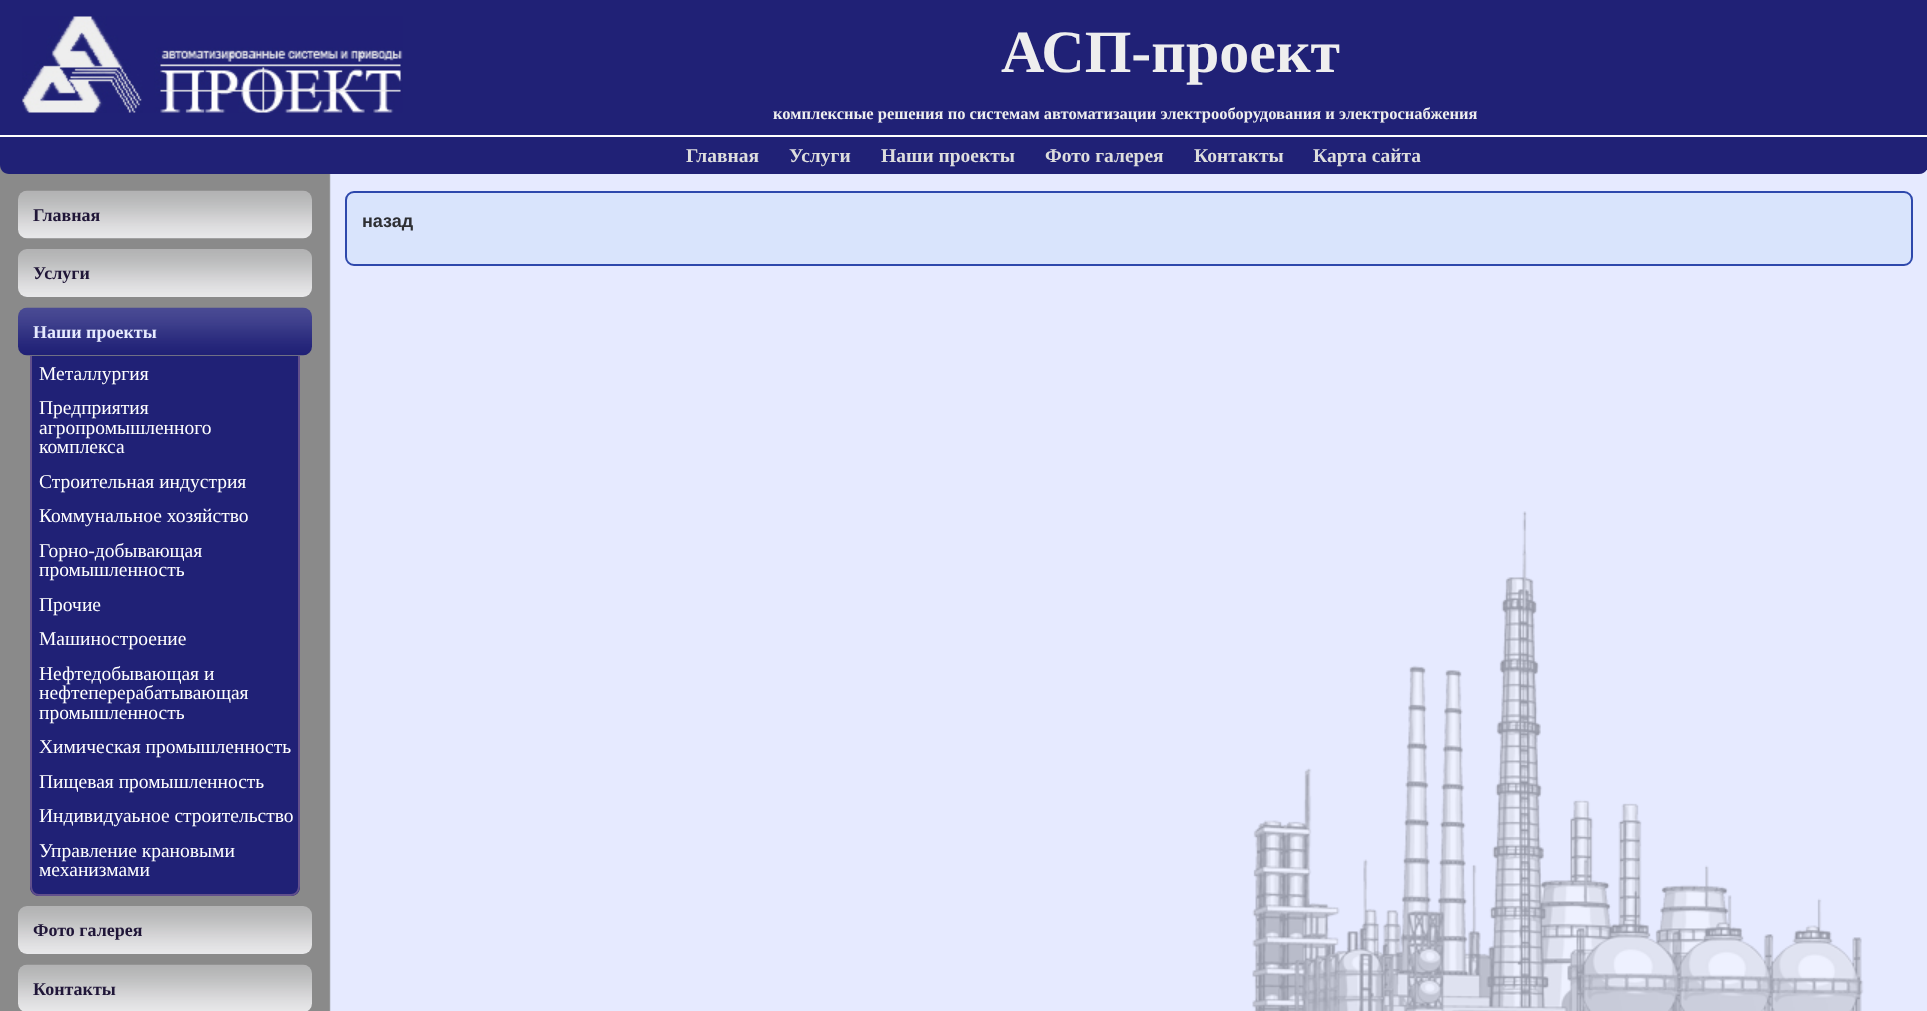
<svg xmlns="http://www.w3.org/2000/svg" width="1927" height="1011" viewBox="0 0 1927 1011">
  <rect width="100%" height="100%" fill="#fff"/>
  <image x="0" y="165" width="1927" height="846" href="img/1.png"/>
  <path d="M0 0h1927v135H0z" fill="#202176"/>
  <image x="22" y="16" width="381" height="97" href="img/2.png"/>
  <path d="M0 135H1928V165C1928 170 1924 174 1919 174H9C4 174 0 170 0 165Z" fill="#202176"/>
  <path d="M0 135h1927v2H0z" fill="#fff"/>
  <image x="18" y="190" width="294" height="49" href="img/3.png"/>
  <image x="18" y="249" width="294" height="48" href="img/4.png"/>
  <image x="18" y="307" width="294" height="49" href="img/5.png"/>
  <path d="M30 356H300V887C300 892 296 896 291 896H39C34 896 30 892 30 887Z" fill="#202176"/>
  <path d="M30 356H300V886C300 891 296 896 291 896H39C34 896 30 891 30 886ZM32 356H298V886C298 891 295 894 291 894H39C35 894 32 891 32 886Z" fill="#62508c" fill-rule="evenodd"/>
  <image x="18" y="906" width="294" height="48" href="img/6.png"/>
  <image x="18" y="964" width="294" height="47" href="img/7.png"/>
  <rect x="346" y="192" width="1566" height="73" rx="8" fill="#d9e4fc" stroke="#2e48ac" stroke-width="2"/>
  <text x="1001" y="72" font-family="Liberation Serif" font-size="60" font-weight="bold" fill="#eee">АСП-проект</text>
  <text x="773" y="119" font-family="Liberation Serif" font-size="16.5" font-weight="bold" fill="#eee">комплексные решения по системам автоматизации электрооборудования и электроснабжения</text>
  <g font-family="Liberation Serif" font-size="19.5" font-weight="bold" fill="#ddd">
    <text x="686" y="162">Главная</text>
    <text x="789" y="162">Услуги</text>
    <text x="881" y="162">Наши проекты</text>
    <text x="1045" y="162">Фото галерея</text>
    <text x="1194" y="162">Контакты</text>
    <text x="1313" y="162">Карта сайта</text>
  </g>
  <g font-family="Liberation Serif" font-size="18" font-weight="bold" fill="#201638">
    <text x="33" y="221">Главная</text>
    <text x="33" y="279">Услуги</text>
  </g>
  <text x="33" y="338" font-family="Liberation Serif" font-size="18" font-weight="bold" fill="#e6eaff">Наши проекты</text>
  <g font-family="Liberation Serif" font-size="19.5" fill="#fff">
    <text x="39" y="380">Металлургия</text>
    <text x="39" y="414">Предприятия</text>
    <text x="39" y="434">агропромышленного</text>
    <text x="39" y="453">комплекса</text>
    <text x="39" y="488">Строительная индустрия</text>
    <text x="39" y="522">Коммунальное хозяйство</text>
    <text x="39" y="557">Горно-добывающая</text>
    <text x="39" y="576">промышленность</text>
    <text x="39" y="611">Прочие</text>
    <text x="39" y="645">Машиностроение</text>
    <text x="39" y="680">Нефтедобывающая и</text>
    <text x="39" y="699">нефтеперерабатывающая</text>
    <text x="39" y="719">промышленность</text>
    <text x="39" y="753">Химическая промышленность</text>
    <text x="39" y="788">Пищевая промышленность</text>
    <text x="39" y="822">Индивидуаьное строительство</text>
    <text x="39" y="857">Управление крановыми</text>
    <text x="39" y="876">механизмами</text>
  </g>
  <g font-family="Liberation Serif" font-size="18" font-weight="bold" fill="#201638">
    <text x="33" y="936">Фото галерея</text>
    <text x="33" y="995">Контакты</text>
  </g>
  <text x="362" y="227" font-family="Liberation Sans" font-size="18" font-weight="bold" fill="#2e2f33">назад</text>
</svg>
